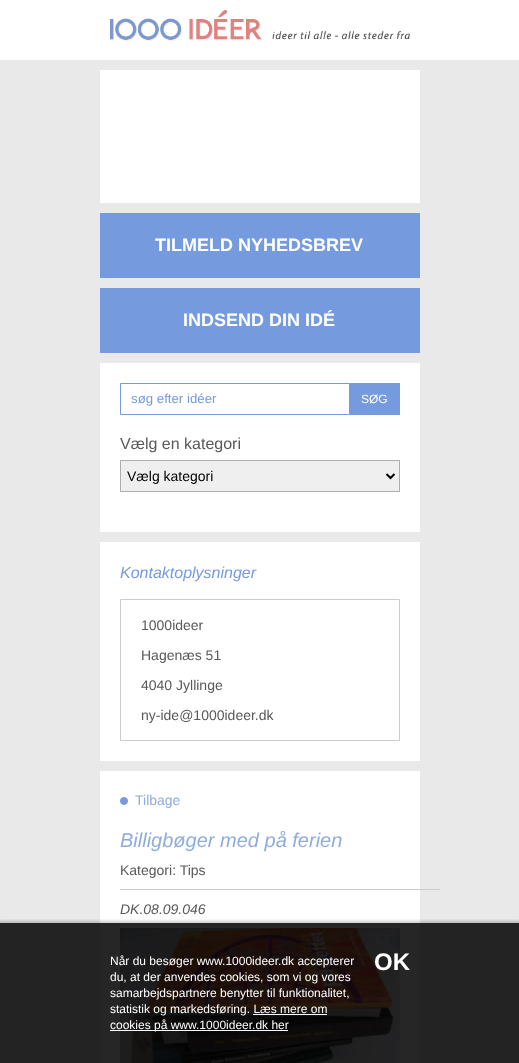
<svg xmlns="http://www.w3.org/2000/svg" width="519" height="1063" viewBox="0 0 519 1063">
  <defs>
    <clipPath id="clip1"><path d="M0 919h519v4H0z"/></clipPath>
  </defs>
  <rect width="100%" height="100%" fill="#e9e9e9"/>
  <path d="M0 923h519v140H0z" fill="#232323"/>
  <path d="M0 0h519v60H0z" fill="#fff"/>
  <image x="110" y="10" width="300" height="31" href="img/1.png"/>
  <path d="M100 70h320v133H100z" fill="#fff"/>
  <path d="M100 213h320v65H100z" fill="#759bde"/>
  <path d="M100 288h320v65H100z" fill="#759bde"/>
  <path d="M100 363h320v169H100z" fill="#fff"/>
  <path d="M120.5 383.5h229v31H120.5z" fill="none" stroke="#759bde"/>
  <path d="M350 383h50v32H350z" fill="#759bde"/>
  <path d="M120.5 460.5h279v31H120.5z" fill="#efefef" stroke="#abadb3"/>
  <path d="M386.5 474L390.5 478L394.5 474" fill="none" stroke="#000" stroke-width="2"/>
  <path d="M100 542h320v219H100z" fill="#fff"/>
  <path d="M120.5 599.5h279v141H120.5z" fill="none" stroke="#cbcbcb"/>
  <path d="M100 771h320v152H100z" fill="#fff"/>
  <path d="M100 923h320v140H100z" fill="#262626"/>
  <image x="120" y="797" width="8" height="8" href="img/2.png"/>
  <path d="M120 889h320v1H120z" fill="#cbcbcb"/>
  <image x="120" y="928" width="280" height="135" href="img/3.png"/>
  <g clip-path="url(#clip1)">
    <path d="M-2 921h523v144H-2z" fill="#00000033" filter="blur(1.5px)"/>
  </g>
  <path d="M253 1014h74v1H253z" fill="#fff"/>
  <path d="M110 1030h178v1H110z" fill="#fff"/>
  <g font-family="Liberation Sans" font-size="18" font-weight="bold" fill="#fff">
    <text x="155" y="251">TILMELD NYHEDSBREV</text>
    <text x="183" y="326">INDSEND DIN IDÉ</text>
  </g>
  <text x="131" y="403" font-family="Liberation Sans" font-size="13.25" fill="#759bde">søg efter idéer</text>
  <text x="361" y="403" font-family="Liberation Sans" font-size="12" fill="#fff">SØG</text>
  <text x="120" y="449" font-family="Liberation Sans" font-size="16" fill="#595959">Vælg en kategori</text>
  <text x="127" y="481" font-family="Liberation Sans" font-size="14" fill="#000">Vælg kategori</text>
  <text x="120" y="578" font-family="Liberation Sans" font-size="16" font-style="italic" fill="#759bde">Kontaktoplysninger</text>
  <g font-family="Liberation Sans" font-size="14" fill="#595959">
    <text x="141" y="630">1000ideer</text>
    <text x="141" y="660">Hagenæs 51</text>
    <text x="141" y="690">4040 Jyllinge</text>
    <text x="141" y="720">ny-ide@1000ideer.dk</text>
  </g>
  <text x="135" y="805" font-family="Liberation Sans" font-size="14" fill="#90acdd">Tilbage</text>
  <text x="120" y="847" font-family="Liberation Sans" font-size="20" font-style="italic" fill="#90acdd">Billigbøger med på ferien</text>
  <text x="120" y="875" font-family="Liberation Sans" font-size="14" fill="#595959">Kategori: Tips</text>
  <text x="120" y="914" font-family="Liberation Sans" font-size="14" font-style="italic" fill="#595959">DK.08.09.046</text>
  <g font-family="Liberation Sans" font-size="12" fill="#fff">
    <text x="110" y="965">Når du besøger www.1000ideer.dk accepterer</text>
    <text x="110" y="981">du, at der anvendes cookies, som vi og vores</text>
    <text x="110" y="997">samarbejdspartnere benytter til funktionalitet,</text>
    <text x="110" y="1013">statistik og markedsføring. Læs mere om</text>
    <text x="110" y="1029">cookies på www.1000ideer.dk her</text>
  </g>
  <text x="374" y="970" font-family="Liberation Sans" font-size="24" font-weight="bold" fill="#fff">OK</text>
</svg>
